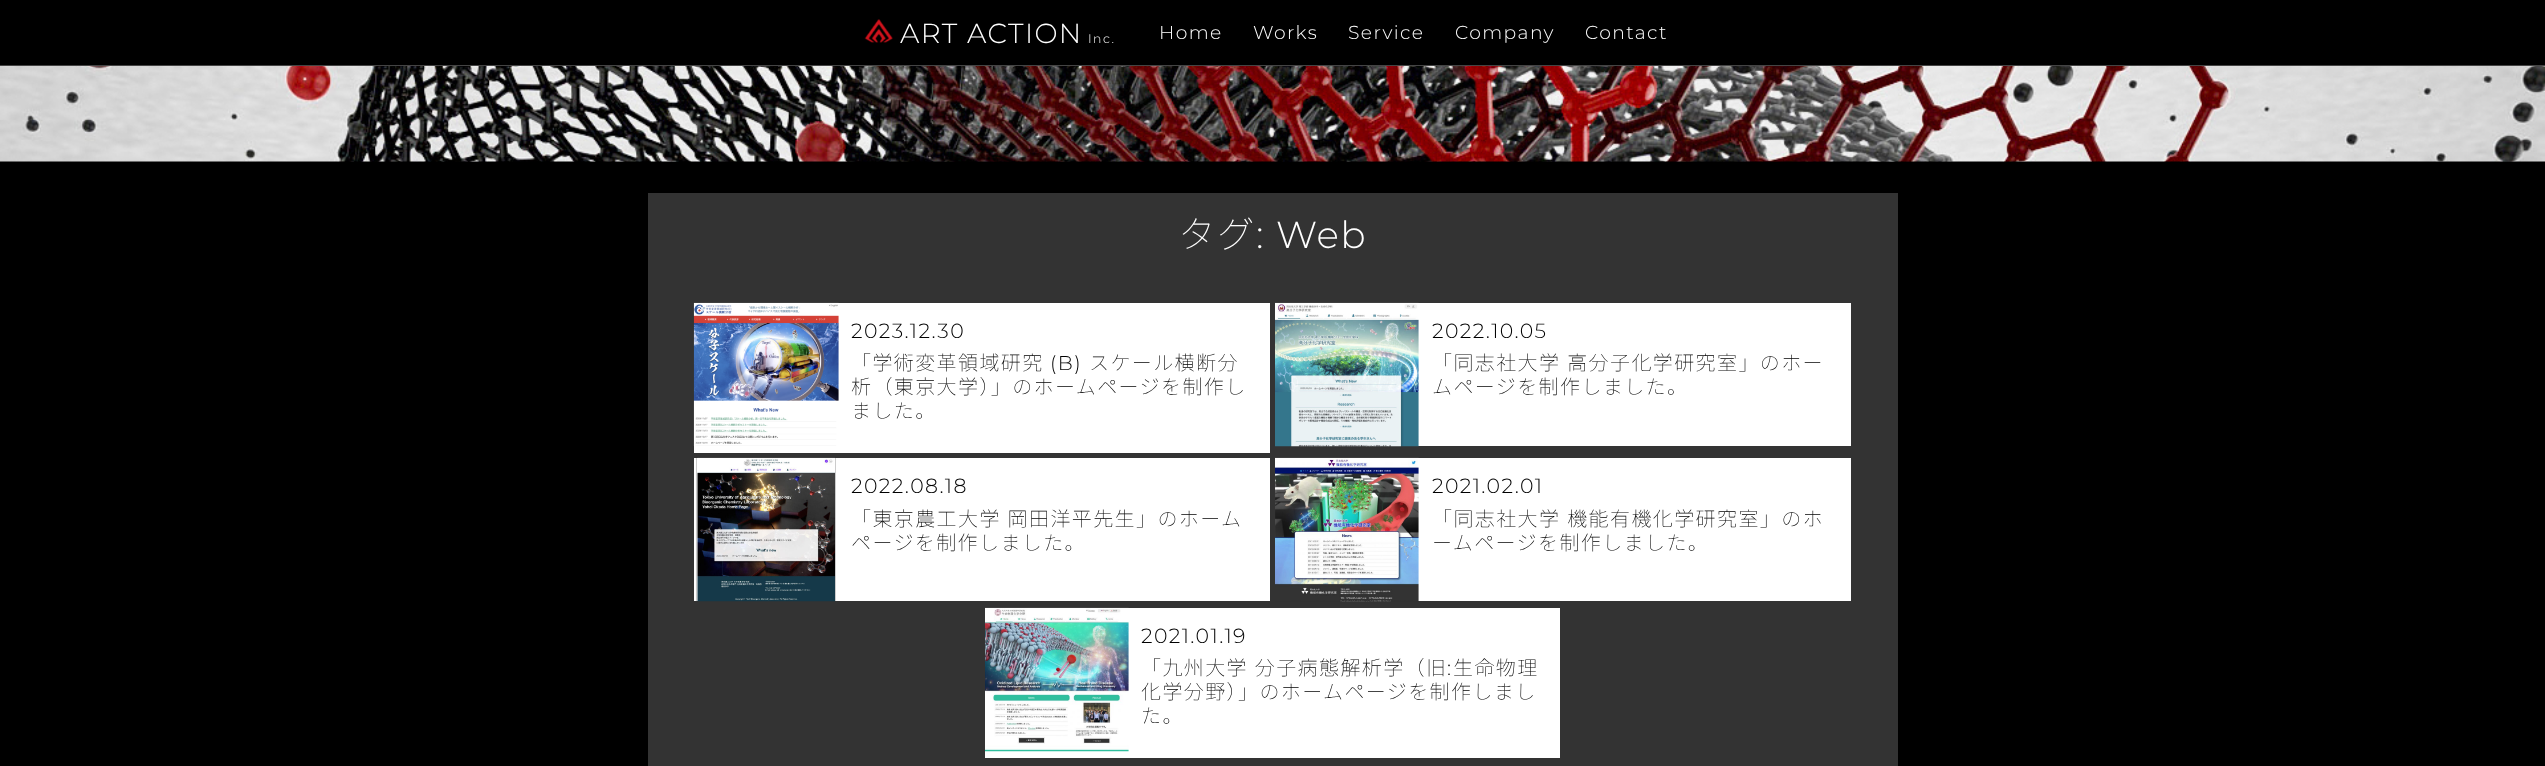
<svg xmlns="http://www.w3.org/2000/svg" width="2545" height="766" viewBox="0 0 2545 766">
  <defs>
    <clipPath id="clip1"><path d="M694 458h145v143H694z"/></clipPath>
  </defs>
  <rect width="100%" height="100%" fill="#000"/>
  <path d="M0 65h2545v1H0z" fill="#444"/>
  <image x="864" y="19" width="29" height="24" href="img/1.png"/>
  <image x="0" y="66" width="2545" height="96" href="img/2.png"/>
  <path d="M648 193h1250v573H648z" fill="#333"/>
  <path d="M694 303h576v150H694z" fill="#fff"/>
  <image x="693" y="302" width="146" height="144" href="img/3.png"/>
  <path d="M1418 303h433v143H1418z" fill="#fff"/>
  <image x="1275" y="302" width="144" height="145" href="img/4.png"/>
  <path d="M694 458h576v143H694z" fill="#fff"/>
  <g clip-path="url(#clip1)">
    <path d="M696.5 456.5h139v146H696.5z" fill="none" stroke="#ccc"/>
  </g>
  <image x="697" y="457" width="138" height="145" href="img/5.png"/>
  <path d="M1418 458h433v143H1418z" fill="#fff"/>
  <image x="1275" y="457" width="144" height="145" href="img/6.png"/>
  <path d="M985 608h575v150H985z" fill="#fff"/>
  <image x="985" y="607" width="144" height="145" href="img/7.png"/>
  <text x="900" y="43" font-family="Montserrat" font-size="27.5" font-weight="300" letter-spacing="1.4" fill="#fff">ART ACTION</text>
  <text x="1088" y="43" font-family="Montserrat" font-size="12.5" font-weight="300" letter-spacing="1.4" fill="#fff">Inc.</text>
  <g font-family="Montserrat" font-size="18.75" font-weight="300" letter-spacing="1.4" fill="#fff">
    <text x="1159" y="39">Home</text>
    <text x="1253" y="39">Works</text>
    <text x="1348" y="39">Service</text>
    <text x="1455" y="39">Company</text>
    <text x="1585" y="39">Contact</text>
  </g>
  <text x="1178" y="248" font-family="Noto Sans JP" font-size="37.5" font-weight="100" letter-spacing="1.4" fill="#fff">タグ</text>
  <text x="1256" y="248" font-family="Montserrat" font-size="37.5" font-weight="300" letter-spacing="1.4" fill="#fff">: Web</text>
  <text x="851" y="338" font-family="Montserrat" font-size="20.5" font-weight="300" letter-spacing="1.4" fill="#000">2023.12.30</text>
  <text x="851" y="370" font-family="Noto Sans JP" font-size="20" font-weight="100" letter-spacing="1.4" fill="#000">「学術変革領域研究</text>
  <text x="1050" y="370" font-family="Montserrat" font-size="20" font-weight="300" letter-spacing="1.4" fill="#000">(B)</text>
  <g font-family="Noto Sans JP" font-size="20" font-weight="100" letter-spacing="1.4" fill="#000">
    <text x="1089" y="370">スケール横断分</text>
    <text x="851" y="394">析（東京大学）」のホームページを制作し</text>
    <text x="851" y="418">ました。</text>
  </g>
  <text x="1432" y="338" font-family="Montserrat" font-size="20.5" font-weight="300" letter-spacing="1.4" fill="#000">2022.10.05</text>
  <g font-family="Noto Sans JP" font-size="20" font-weight="100" letter-spacing="1.4" fill="#000">
    <text x="1432" y="370" word-spacing="1">「同志社大学 高分子化学研究室」のホー</text>
    <text x="1432" y="394">ムページを制作しました。</text>
  </g>
  <text x="851" y="493" font-family="Montserrat" font-size="20.5" font-weight="300" letter-spacing="1.4" fill="#000">2022.08.18</text>
  <g font-family="Noto Sans JP" font-size="20" font-weight="100" letter-spacing="1.4" fill="#000">
    <text x="851" y="526" word-spacing="1">「東京農工大学 岡田洋平先生」のホーム</text>
    <text x="851" y="550">ページを制作しました。</text>
  </g>
  <text x="1432" y="493" font-family="Montserrat" font-size="20.5" font-weight="300" letter-spacing="1.4" fill="#000">2021.02.01</text>
  <g font-family="Noto Sans JP" font-size="20" font-weight="100" letter-spacing="1.4" fill="#000">
    <text x="1432" y="526" word-spacing="1">「同志社大学 機能有機化学研究室」のホ</text>
    <text x="1432" y="550">ームページを制作しました。</text>
  </g>
  <text x="1141" y="643" font-family="Montserrat" font-size="20.5" font-weight="300" letter-spacing="1.4" fill="#000">2021.01.19</text>
  <text x="1141" y="675" word-spacing="1" font-family="Noto Sans JP" font-size="20" font-weight="100" letter-spacing="1.4" fill="#000">「九州大学 分子病態解析学（旧</text>
  <text x="1447" y="675" font-family="Montserrat" font-size="20" font-weight="300" letter-spacing="1.4" fill="#000">:</text>
  <g font-family="Noto Sans JP" font-size="20" font-weight="100" letter-spacing="1.4" fill="#000">
    <text x="1453" y="675">生命物理</text>
    <text x="1141" y="699">化学分野）」のホームページを制作しまし</text>
    <text x="1141" y="723">た。</text>
  </g>
</svg>
